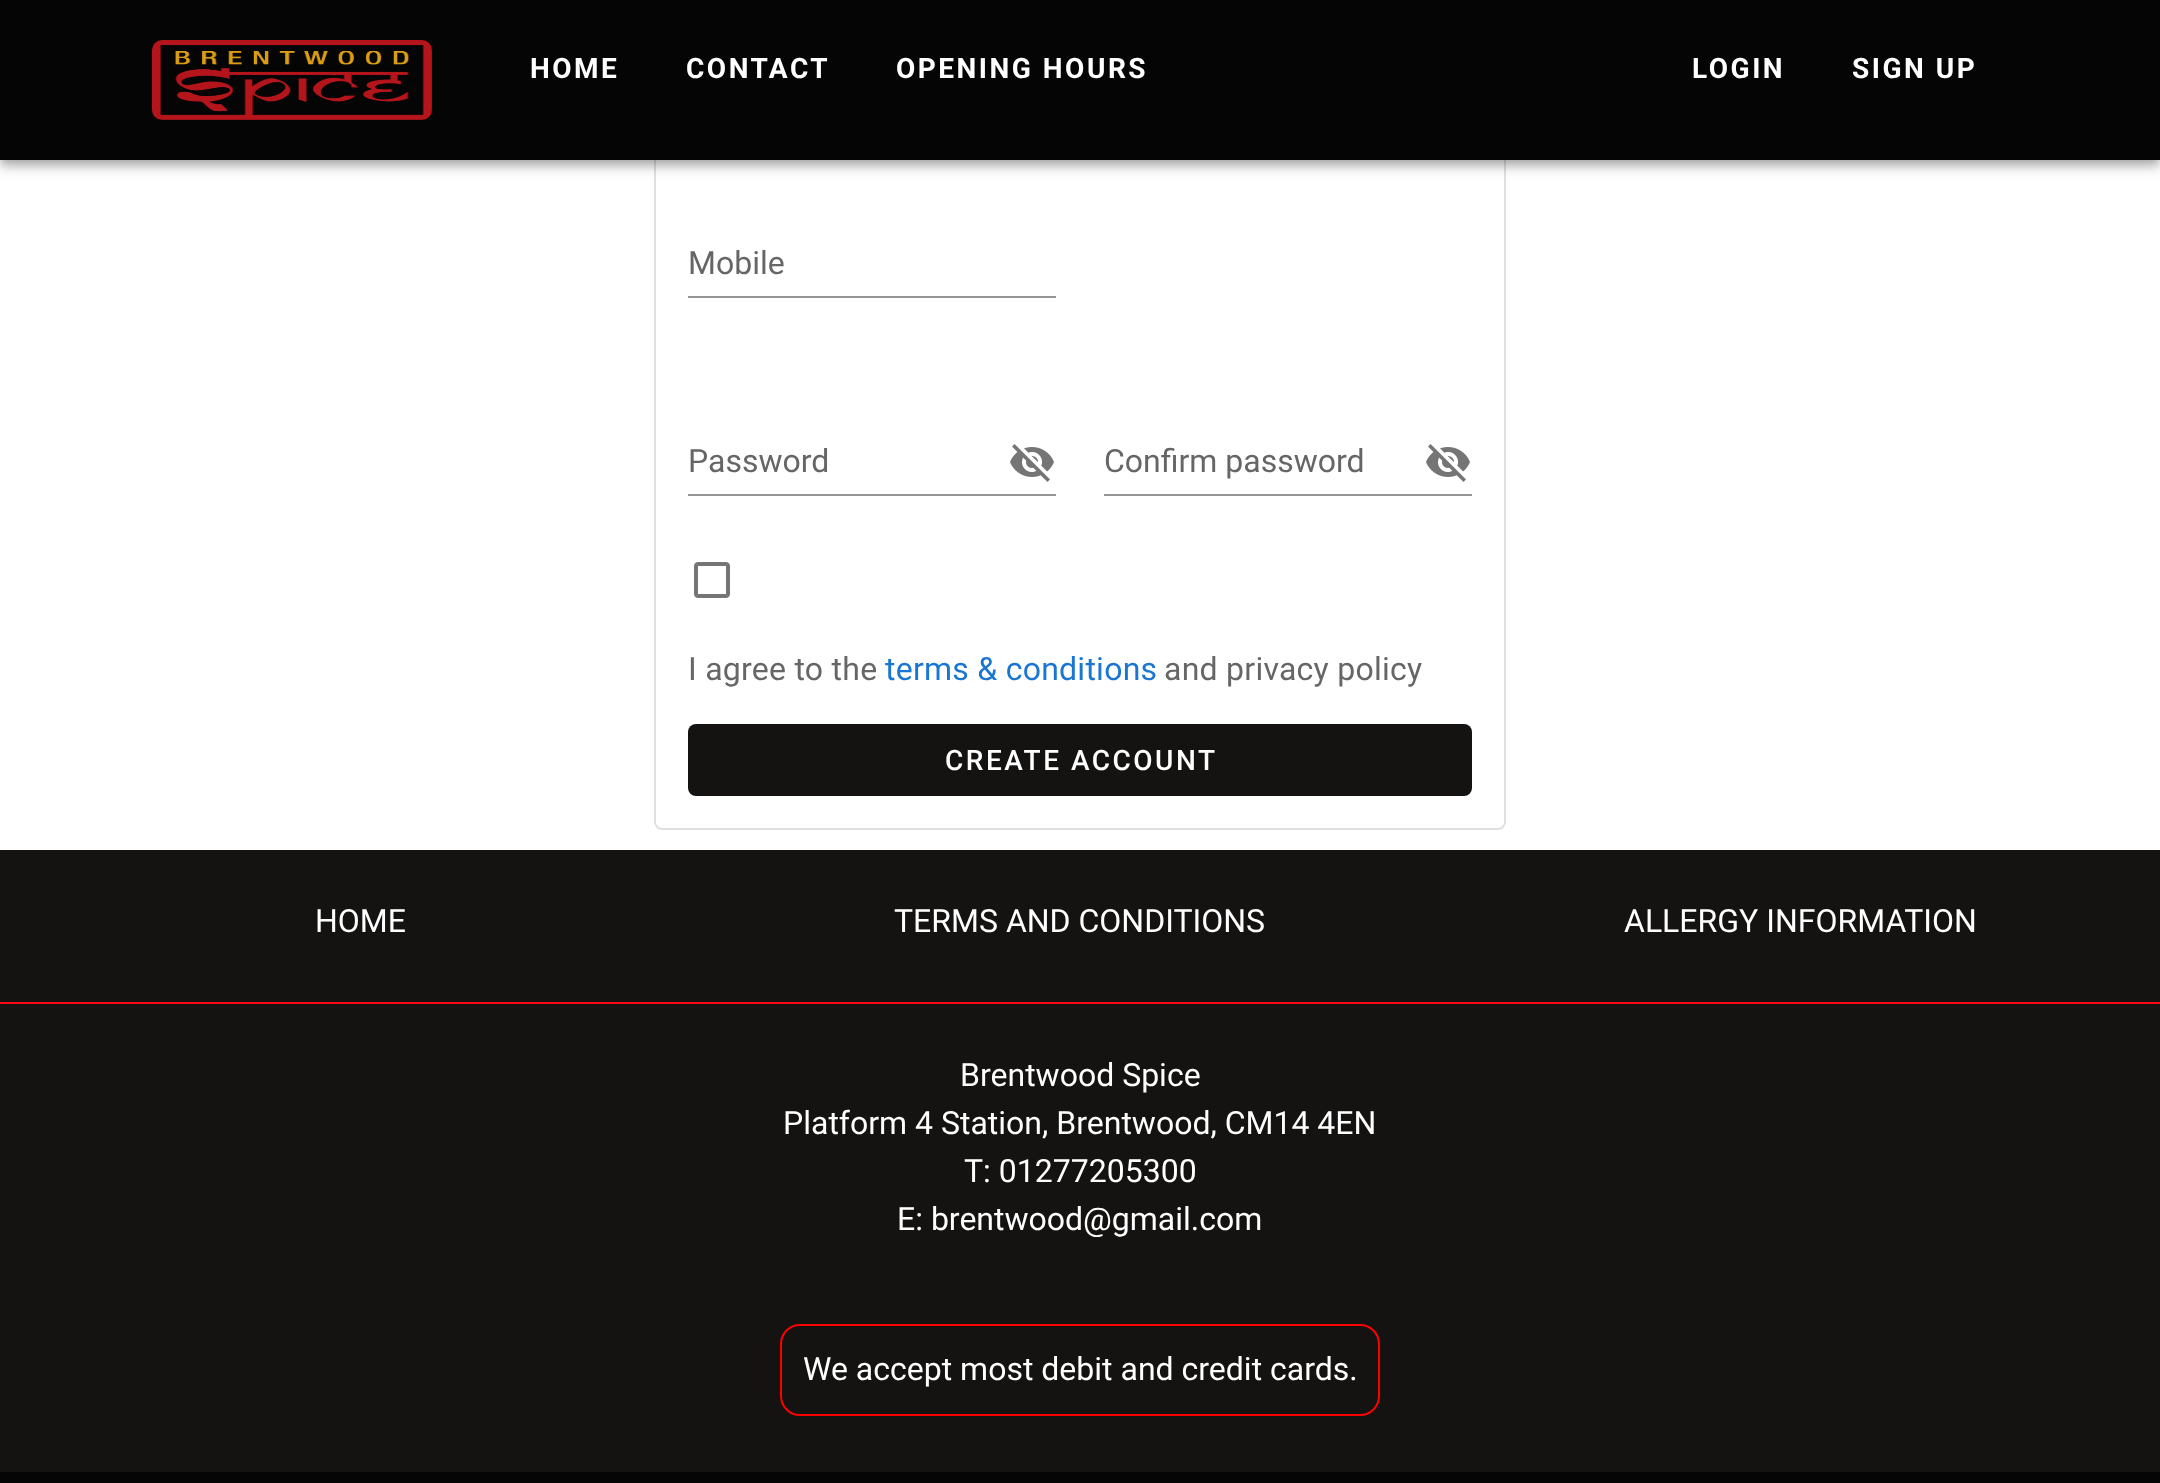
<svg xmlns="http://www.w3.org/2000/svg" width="2160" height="1483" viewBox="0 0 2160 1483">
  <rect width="100%" height="100%" fill="#fff"/>
  <rect x="655" y="-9" width="850" height="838" rx="7" fill="none" stroke="#e0e0e0" stroke-width="2"/>
  <path d="M0 2h2160v160H0z" fill="#0000001f" filter="blur(10px)"/>
  <path d="M0 8h2160v160H0z" fill="#00000024" filter="blur(5px)"/>
  <path d="M2 6h2156v156H2z" fill="#00000033" filter="blur(4px)"/>
  <path d="M0 0h2160v160H0z" fill="#050505"/>
  <image x="152" y="40" width="280" height="80" href="img/1.png"/>
  <path d="M688 296h368v2H688z" fill="#949494"/>
  <image x="1010" y="444" width="44" height="38" href="img/2.png"/>
  <path d="M688 494h368v2H688z" fill="#949494"/>
  <image x="1426" y="444" width="44" height="38" href="img/2.png"/>
  <path d="M1104 494h368v2H1104z" fill="#949494"/>
  <image x="694" y="562" width="36" height="36" href="img/3.png"/>
  <rect x="688" y="724" width="784" height="72" rx="8" fill="#141312"/>
  <path d="M0 850h2160v622H0z" fill="#141312"/>
  <path d="M0 1002h2160v2H0z" fill="#fb0715"/>
  <rect x="781" y="1325" width="598" height="90" rx="19" fill="none" stroke="#f00" stroke-width="2"/>
  <path d="M0 1472h2160v11H0z" fill="#050505"/>
  <g font-family="Roboto" font-size="28" font-weight="bold" letter-spacing="2.5" fill="#fff">
    <text x="530" y="78">HOME</text>
    <text x="686" y="78">CONTACT</text>
    <text x="896" y="78">OPENING HOURS</text>
    <text x="1692" y="78">LOGIN</text>
    <text x="1852" y="78">SIGN UP</text>
  </g>
  <g font-family="Roboto" font-size="32" fill="#666">
    <text x="688" y="274">Mobile</text>
    <text x="688" y="472">Password</text>
    <text x="1104" y="472">Confirm password</text>
  </g>
  <text x="688" y="680" font-family="Roboto" font-size="32" letter-spacing="0.25" fill="#666">I agree to the</text>
  <text x="885" y="680" font-family="Roboto" font-size="32" letter-spacing="0.25" fill="#1976d2">terms &amp; conditions</text>
  <text x="1164" y="680" font-family="Roboto" font-size="32" letter-spacing="0.25" fill="#666">and privacy policy</text>
  <text x="945" y="770" font-family="Roboto" font-size="28" font-weight="500" letter-spacing="2.5" fill="#fff">CREATE ACCOUNT</text>
  <g font-family="Roboto" font-size="32" fill="#fff">
    <text x="315" y="932">HOME</text>
    <text x="894" y="932">TERMS AND CONDITIONS</text>
    <text x="1624" y="932">ALLERGY INFORMATION</text>
    <text x="960" y="1086">Brentwood Spice</text>
    <text x="783" y="1134">Platform 4 Station, Brentwood, CM14 4EN</text>
    <text x="964" y="1182">T: 01277205300</text>
    <text x="897" y="1230">E: brentwood@gmail.com</text>
    <text x="803" y="1380">We accept most debit and credit cards.</text>
  </g>
</svg>
